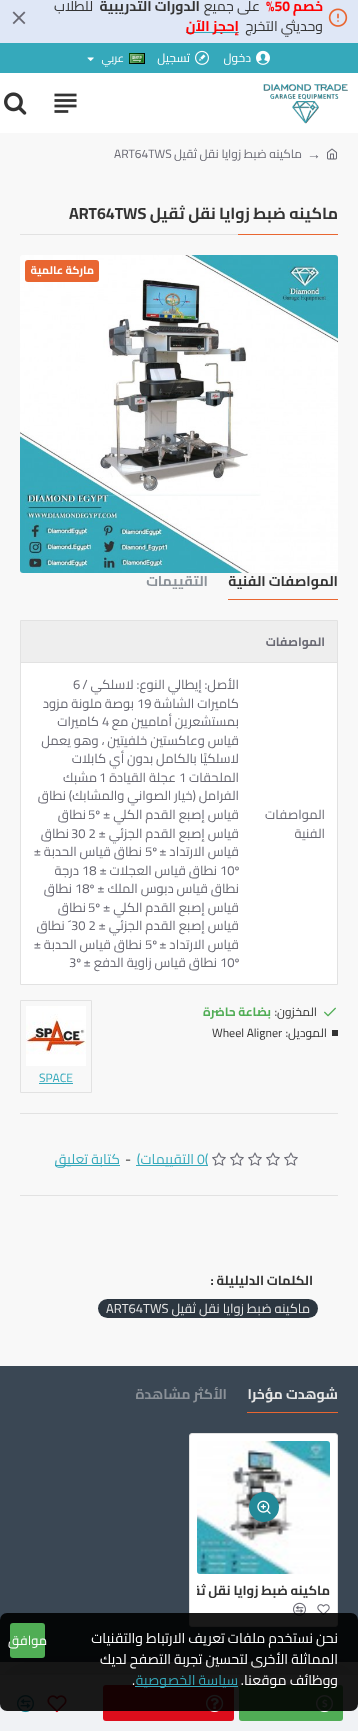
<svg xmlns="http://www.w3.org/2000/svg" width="358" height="1731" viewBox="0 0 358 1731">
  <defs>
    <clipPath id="clip1"><path d="M197 1582h133v16H197z"/></clipPath>
  </defs>
  <rect width="100%" height="100%" fill="#f8f8f8"/>
  <path d="M0 0h358v43H0z" fill="#dfe7f6"/>
  <image x="328" y="8" width="20" height="19" href="img/1.png"/>
  <path d="M186 32h53v1H186z" fill="#35a9bb"/>
  <image x="12" y="11" width="14" height="14" href="img/2.png"/>
  <path d="M0 43h358v30H0z" fill="#35a9bb"/>
  <image x="256" y="50" width="14" height="15" href="img/3.png"/>
  <image x="195" y="50" width="14" height="15" href="img/4.png"/>
  <image x="129" y="53" width="16" height="11" href="img/5.png"/>
  <image x="87" y="57" width="7" height="4" href="img/6.png"/>
  <path d="M0 73h358v60H0z" fill="#fff"/>
  <image x="263" y="84" width="85" height="40" href="img/7.png"/>
  <image x="54" y="93" width="23" height="20" href="img/8.png"/>
  <image x="4" y="92" width="23" height="23" href="img/9.png"/>
  <image x="327" y="148" width="10" height="12" href="img/10.png"/>
  <path d="M20 234h218v1H20z" fill="#e2e2e2"/>
  <path d="M238 234h100v1H238z" fill="#e96631"/>
  <image x="20" y="255" width="318" height="318" href="img/11.png"/>
  <rect x="25" y="260" width="74" height="22" rx="3" fill="#e96631"/>
  <path d="M228 599h110v1H228z" fill="#e96631"/>
  <path d="M20.5 620.5h317v364H20.5z" fill="none" stroke="#e2e2e2"/>
  <path d="M21 621h316v41H21z" fill="#eee"/>
  <path d="M21 662h316v1H21z" fill="#e2e2e2"/>
  <path d="M21 663h316v321H21z" fill="#fff"/>
  <path d="M20 1113h318v1H20z" fill="#e2e2e2"/>
  <image x="324" y="1007" width="12" height="10" href="img/12.png"/>
  <path d="M332 1030h6v6H332z" fill="#333"/>
  <path d="M20.5 1000.5h71v92H20.5z" fill="none" stroke="#e2e2e2"/>
  <image x="26" y="1006" width="60" height="60" href="img/13.png"/>
  <path d="M39 1083h34v1H39z" fill="#35a9bb"/>
  <path d="M20 1195h318v1H20z" fill="#e2e2e2"/>
  <image x="284" y="1152" width="14" height="14" href="img/14.png"/>
  <image x="266" y="1152" width="14" height="14" href="img/14.png"/>
  <image x="248" y="1152" width="14" height="14" href="img/14.png"/>
  <image x="230" y="1152" width="14" height="14" href="img/14.png"/>
  <image x="212" y="1152" width="14" height="14" href="img/14.png"/>
  <path d="M136 1165h72v1H136z" fill="#35a9bb"/>
  <path d="M55 1165h65v1H55z" fill="#35a9bb"/>
  <path d="M0 1366h358v296H0z" fill="#3a4754"/>
  <rect x="189.5" y="1433.5" width="148" height="193" rx="2.5" fill="#fff" stroke="#e2e2e2"/>
  <path d="M0 1662h358v12H0z" fill="#eee"/>
  <path d="M5 1669h348v47H5z" fill="#00000026" filter="blur(15px)"/>
  <path d="M0 1675h358v56H0z" fill="#f0f2f5"/>
  <path d="M0 1674h358v1H0z" fill="#e2e2e2"/>
  <rect x="239" y="1685" width="104" height="36" rx="3" fill="#50ad55"/>
  <image x="316" y="1695" width="17" height="18" href="img/15.png"/>
  <rect x="103" y="1685" width="131" height="36" rx="3" fill="#dd0e1c"/>
  <image x="206" y="1694" width="18" height="18" href="img/16.png"/>
  <image x="47" y="1695" width="20" height="18" href="img/17.png"/>
  <image x="17" y="1695" width="17" height="18" href="img/18.png"/>
  <rect x="98" y="1299" width="220" height="19" rx="9.5" fill="#2c3640"/>
  <path d="M247 1412h91v1H247z" fill="#e96631"/>
  <image x="197" y="1441" width="133" height="133" href="img/19.png"/>
  <circle cx="264" cy="1507" r="15" fill="#238998"/>
  <image x="257" y="1500" width="14" height="14" href="img/20.png"/>
  <image x="317" y="1604" width="13" height="12" href="img/21.png"/>
  <image x="293" y="1602" width="13" height="14" href="img/22.png"/>
  <rect y="1613" width="358" height="98" rx="7" fill="#000000e6"/>
  <path d="M135 1686h103v1H135z" fill="#35a9bb"/>
  <rect x="10" y="1623" width="35" height="35" rx="3" fill="#50ad55"/>
  <text x="323" y="11" font-family="Cairo" font-size="14" font-weight="bold" direction="rtl" fill="#f00">خصم</text>
  <text x="266" y="11" font-family="Cairo" font-size="14" font-weight="bold" fill="#f00">%50</text>
  <text x="260" y="11" font-family="Cairo" font-size="14" direction="rtl" fill="#333">على جميع</text>
  <text x="200" y="11" font-family="Cairo" font-size="14" font-weight="bold" direction="rtl" fill="#333">الدورات التدريبية</text>
  <g font-family="Cairo" font-size="14" direction="rtl" fill="#333">
    <text x="93" y="11">للطلاب</text>
    <text x="323" y="31">وحديثي التخرج</text>
  </g>
  <text x="239" y="31" font-family="Cairo" font-size="14" font-weight="bold" direction="rtl" fill="#f00">إحجز الآن</text>
  <g font-family="Cairo" font-size="12" direction="rtl" fill="#fff">
    <text x="251" y="62">دخول</text>
    <text x="190" y="62">تسجيل</text>
  </g>
  <text x="124" y="62" font-family="Cairo" font-size="11" direction="rtl" fill="#fff">عربي</text>
  <text x="307" y="159" font-family="Liberation Serif" font-size="14" fill="#696973">→</text>
  <text x="302" y="158" font-family="Cairo" font-size="12" direction="rtl" fill="#696973">ماكينه ضبط زوايا نقل ثقيل</text>
  <text x="114" y="158" font-family="Cairo" font-size="12" fill="#696973">ART64TWS</text>
  <text x="338" y="219" font-family="Cairo" font-size="16" font-weight="bold" direction="rtl" fill="#333">ماكينه ضبط زوايا نقل ثقيل</text>
  <text x="69" y="219" font-family="Cairo" font-size="16" font-weight="bold" fill="#333">ART64TWS</text>
  <text x="94" y="274" font-family="Cairo" font-size="11" font-weight="bold" direction="rtl" fill="#fff">ماركة عالمية</text>
  <text x="338" y="586" font-family="Cairo" font-size="14" font-weight="bold" direction="rtl" fill="#333">المواصفات الفنية</text>
  <text x="208" y="586" font-family="Cairo" font-size="14" font-weight="bold" direction="rtl" fill="#8b9198">التقييمات</text>
  <text x="325" y="646" font-family="Cairo" font-size="12" font-weight="bold" direction="rtl" fill="#696973">المواصفات</text>
  <g font-family="Cairo" font-size="13" direction="rtl" fill="#696973">
    <text x="325" y="819">المواصفات</text>
    <text x="325" y="838">الفنية</text>
    <text x="239" y="689">الأصل: إيطالي النوع: لاسلكي /</text>
  </g>
  <text x="73" y="689" font-family="Cairo" font-size="13" fill="#696973">6</text>
  <text x="239" y="708" font-family="Cairo" font-size="13" direction="rtl" fill="#696973">كاميرات الشاشة</text>
  <text x="137" y="708" font-family="Cairo" font-size="13" fill="#696973">19</text>
  <g font-family="Cairo" font-size="13" direction="rtl" fill="#696973">
    <text x="134" y="708">بوصة ملونة مزود</text>
    <text x="239" y="726">بمستشعرين أماميين مع</text>
  </g>
  <text x="102" y="726" font-family="Cairo" font-size="13" fill="#696973">4</text>
  <g font-family="Cairo" font-size="13" direction="rtl" fill="#696973">
    <text x="99" y="726">كاميرات</text>
    <text x="239" y="745">قياس وعاكستين خلفيتين ، وهو يعمل</text>
    <text x="239" y="763">لاسلكيًا بالكامل بدون أي كابلات</text>
    <text x="239" y="782">الملحقات</text>
  </g>
  <text x="179" y="782" font-family="Cairo" font-size="13" fill="#696973">1</text>
  <text x="176" y="782" font-family="Cairo" font-size="13" direction="rtl" fill="#696973">عجلة القيادة</text>
  <text x="99" y="782" font-family="Cairo" font-size="13" fill="#696973">1</text>
  <g font-family="Cairo" font-size="13" direction="rtl" fill="#696973">
    <text x="97" y="782">مشبك</text>
    <text x="239" y="800">الفرامل (خيار الصواني والمشابك) نطاق</text>
    <text x="239" y="819">قياس إصبع القدم الكلي ±</text>
  </g>
  <text x="88" y="819" font-family="Cairo" font-size="13" fill="#696973">5º</text>
  <g font-family="Cairo" font-size="13" direction="rtl" fill="#696973">
    <text x="86" y="819">نطاق</text>
    <text x="239" y="838">قياس إصبع القدم الجزئي ±</text>
  </g>
  <text x="71" y="838" font-family="Cairo" font-size="13" fill="#696973">30 2</text>
  <g font-family="Cairo" font-size="13" direction="rtl" fill="#696973">
    <text x="69" y="838">نطاق</text>
    <text x="239" y="856">قياس الارتداد ±</text>
  </g>
  <text x="145" y="856" font-family="Cairo" font-size="13" fill="#696973">5º</text>
  <text x="142" y="856" font-family="Cairo" font-size="13" direction="rtl" fill="#696973">نطاق قياس الحدبة ±</text>
  <text x="220" y="875" font-family="Cairo" font-size="13" fill="#696973">10º</text>
  <text x="217" y="875" font-family="Cairo" font-size="13" direction="rtl" fill="#696973">نطاق قياس العجلات ±</text>
  <text x="82" y="875" font-family="Cairo" font-size="13" fill="#696973">18</text>
  <g font-family="Cairo" font-size="13" direction="rtl" fill="#696973">
    <text x="79" y="875">درجة</text>
    <text x="239" y="893">نطاق قياس دبوس الملك ±</text>
  </g>
  <text x="75" y="893" font-family="Cairo" font-size="13" fill="#696973">18º</text>
  <g font-family="Cairo" font-size="13" direction="rtl" fill="#696973">
    <text x="72" y="893">نطاق</text>
    <text x="239" y="912">قياس إصبع القدم الكلي ±</text>
  </g>
  <text x="88" y="912" font-family="Cairo" font-size="13" fill="#696973">5º</text>
  <g font-family="Cairo" font-size="13" direction="rtl" fill="#696973">
    <text x="86" y="912">نطاق</text>
    <text x="239" y="930">قياس إصبع القدم الجزئي ±</text>
  </g>
  <text x="71" y="930" font-family="Cairo" font-size="13" fill="#696973">30 2</text>
  <g font-family="Cairo" font-size="13" direction="rtl" fill="#696973">
    <text x="71" y="930">´ نطاق</text>
    <text x="239" y="949">قياس الارتداد ±</text>
  </g>
  <text x="145" y="949" font-family="Cairo" font-size="13" fill="#696973">5º</text>
  <text x="142" y="949" font-family="Cairo" font-size="13" direction="rtl" fill="#696973">نطاق قياس الحدبة ±</text>
  <text x="220" y="967" font-family="Cairo" font-size="13" fill="#696973">10º</text>
  <text x="217" y="967" font-family="Cairo" font-size="13" direction="rtl" fill="#696973">نطاق قياس زاوية الدفع ±</text>
  <text x="69" y="967" font-family="Cairo" font-size="13" fill="#696973">3º</text>
  <text x="317" y="1016" font-family="Cairo" font-size="12" direction="rtl" fill="#333">المخزون:</text>
  <text x="271" y="1016" font-family="Cairo" font-size="12" font-weight="bold" direction="rtl" fill="#50ad55">بضاعة حاضرة</text>
  <text x="327" y="1037" font-family="Cairo" font-size="12" direction="rtl" fill="#333">الموديل:</text>
  <text x="212" y="1037" font-family="Cairo" font-size="12" fill="#333">Wheel Aligner</text>
  <text x="39" y="1082" font-family="Cairo" font-size="12" fill="#35a9bb">SPACE</text>
  <text x="197" y="1164" font-family="Cairo" font-size="14" fill="#35a9bb">0(</text>
  <text x="194" y="1164" font-family="Cairo" font-size="14" direction="rtl" fill="#35a9bb">التقييمات)</text>
  <text x="125" y="1164" font-family="Cairo" font-size="14" fill="#333">-</text>
  <text x="120" y="1164" font-family="Cairo" font-size="14" direction="rtl" fill="#35a9bb">كتابة تعليق</text>
  <text x="313" y="1285" font-family="Cairo" font-size="13" font-weight="bold" direction="rtl" fill="#333">الكلمات الدليليلة :</text>
  <text x="310" y="1313" font-family="Cairo" font-size="13" direction="rtl" fill="#e6e6e6">ماكينه ضبط زوايا نقل ثقيل</text>
  <text x="106" y="1313" font-family="Cairo" font-size="13" fill="#e6e6e6">ART64TWS</text>
  <text x="338" y="1399" font-family="Cairo" font-size="14" font-weight="bold" direction="rtl" fill="#e6e6e6">شوهدت مؤخرا</text>
  <text x="227" y="1399" font-family="Cairo" font-size="14" font-weight="bold" direction="rtl" fill="#8b9198">الأكثر مشاهدة</text>
  <g clip-path="url(#clip1)">
    <text x="330" y="1595" font-family="Cairo" font-size="13" font-weight="bold" direction="rtl" fill="#333">ماكينه ضبط زوايا نقل ثقيل</text>
  </g>
  <g font-family="Cairo" font-size="14" direction="rtl" fill="#fff">
    <text x="338" y="1643">نحن نستخدم ملفات تعريف الارتباط والتقنيات</text>
    <text x="338" y="1664">المماثلة الأخرى لتحسين تجربة التصفح لديك</text>
    <text x="338" y="1685">ووظائف موقعنا.</text>
  </g>
  <text x="238" y="1685" font-family="Cairo" font-size="14" direction="rtl" fill="#35a9bb">سياسة الخصوصية</text>
  <text x="132" y="1685" font-family="Cairo" font-size="14" fill="#fff">.</text>
  <text x="47" y="1645" font-family="Cairo" font-size="13" direction="rtl" fill="#fff">موافق</text>
</svg>
